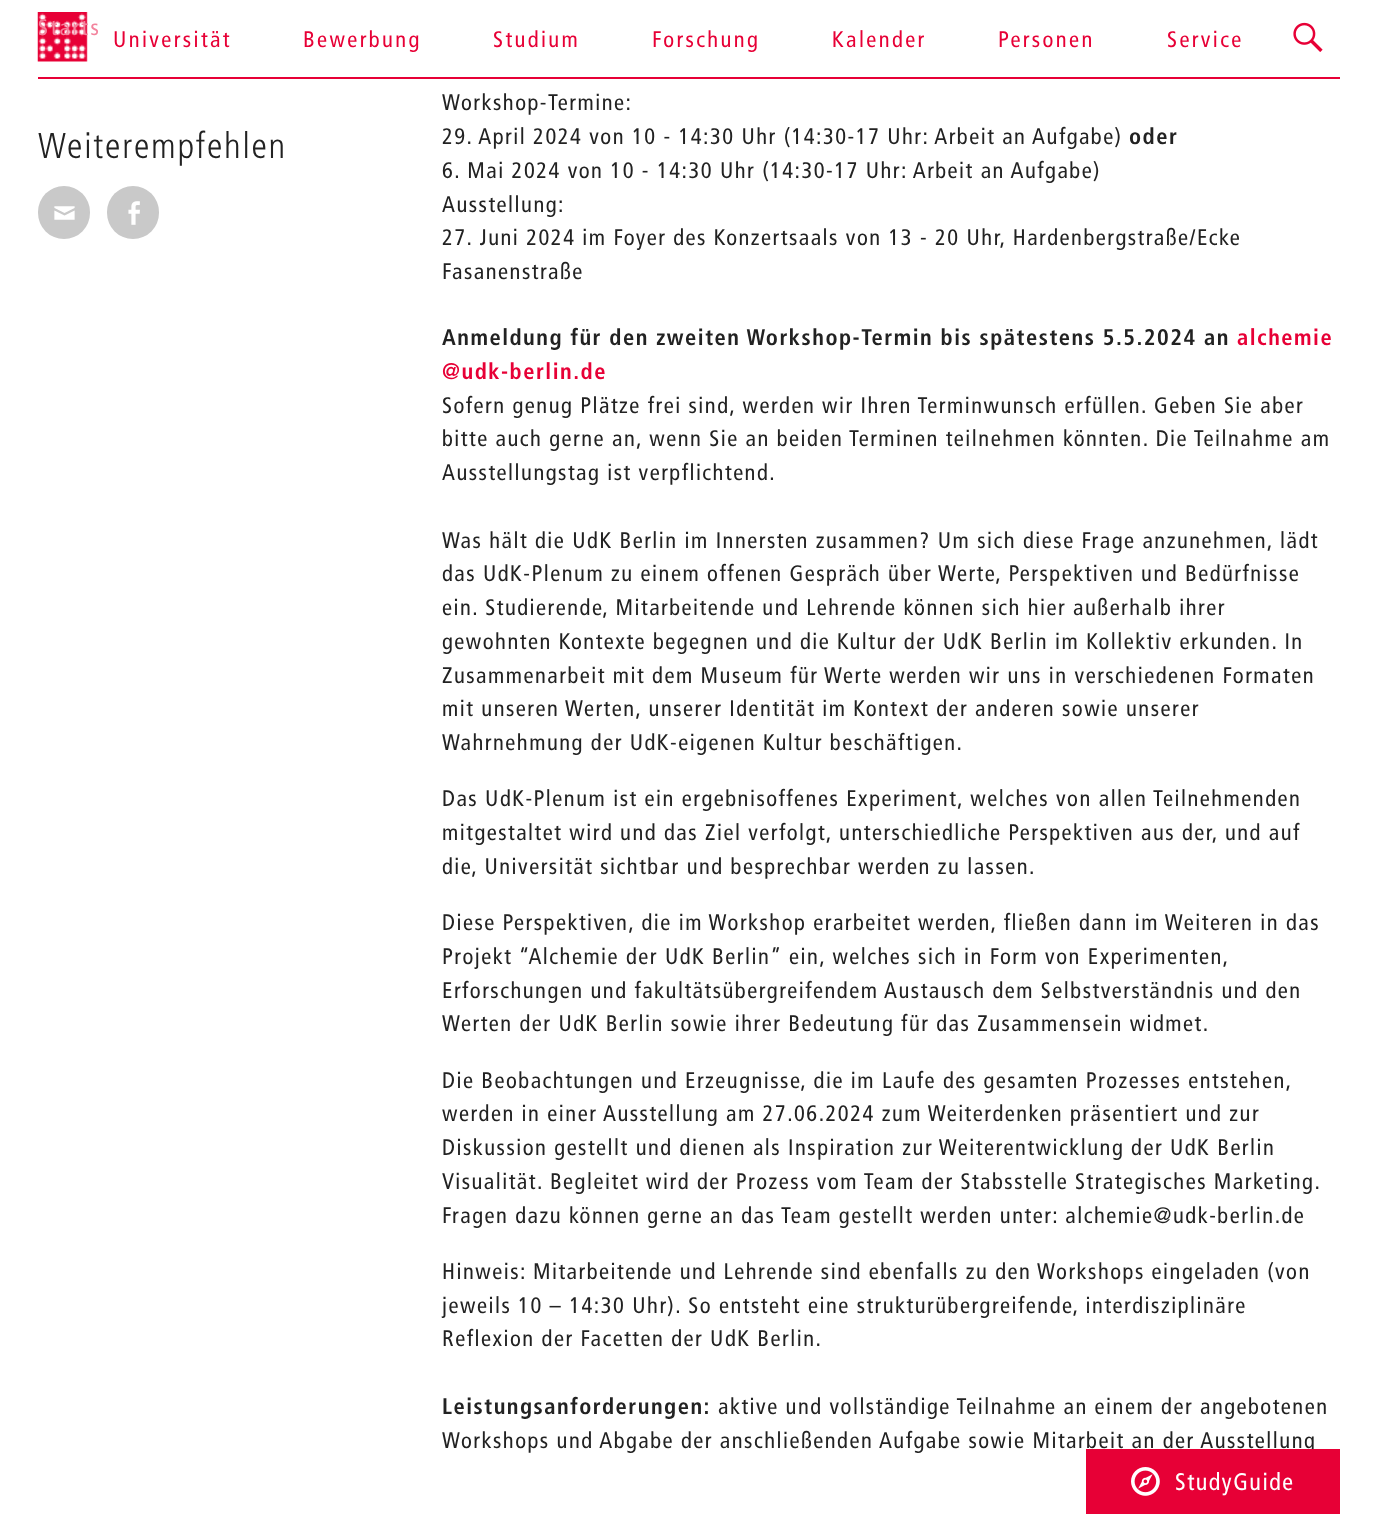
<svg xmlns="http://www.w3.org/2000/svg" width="1377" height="1514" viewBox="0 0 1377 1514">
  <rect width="100%" height="100%" fill="#fff"/>
  <path d="M38 77h1302v2H38z" fill="#e70036"/>
  <image x="37" y="12" width="51" height="50" href="img/1.png"/>
  <image x="1293" y="22" width="30" height="30" href="img/2.png"/>
  <rect x="38" y="186" width="52" height="53" rx="26" fill="#c9c9c9"/>
  <image x="54" y="206" width="21" height="14" href="img/3.png"/>
  <rect x="107" y="186" width="52" height="53" rx="26" fill="#c9c9c9"/>
  <image x="128" y="201" width="12" height="24" href="img/4.png"/>
  <text x="38" y="35" font-family="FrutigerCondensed" font-size="22.5" letter-spacing="2.4" fill="#f3839d">Starts</text>
  <g font-family="FrutigerCondensed" font-size="22.5" letter-spacing="2.4" fill="#e70036">
    <text x="113" y="47">Universität</text>
    <text x="303" y="47">Bewerbung</text>
    <text x="493" y="47">Studium</text>
    <text x="652" y="47">Forschung</text>
    <text x="832" y="47">Kalender</text>
    <text x="998" y="47">Personen</text>
    <text x="1167" y="47">Service</text>
  </g>
  <text x="38" y="158" font-family="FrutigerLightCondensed" font-size="36" font-weight="300" letter-spacing="1.75" fill="#222">Weiterempfehlen</text>
  <g font-family="FrutigerCondensed" font-size="22.5" letter-spacing="1.5" fill="#222">
    <text x="442" y="110">Workshop-Termine:</text>
    <text x="442" y="144">29. April 2024 von 10 - 14:30 Uhr (14:30-17 Uhr: Arbeit an Aufgabe)</text>
  </g>
  <text x="1129" y="144" font-family="FrutigerCondensed" font-size="22.5" font-weight="bold" letter-spacing="1.5" fill="#222">oder</text>
  <g font-family="FrutigerCondensed" font-size="22.5" letter-spacing="1.5" fill="#222">
    <text x="442" y="178">6. Mai 2024 von 10 - 14:30 Uhr (14:30-17 Uhr: Arbeit an Aufgabe)</text>
    <text x="442" y="212">Ausstellung:</text>
    <text x="442" y="245">27. Juni 2024 im Foyer des Konzertsaals von 13 - 20 Uhr, Hardenbergstraße/Ecke</text>
    <text x="442" y="279">Fasanenstraße</text>
  </g>
  <text x="442" y="345" font-family="FrutigerCondensed" font-size="22.5" font-weight="bold" letter-spacing="1.5" fill="#222">Anmeldung für den zweiten Workshop-Termin bis spätestens 5.5.2024 an</text>
  <g font-family="FrutigerCondensed" font-size="22.5" font-weight="bold" letter-spacing="1.5" fill="#e70036">
    <text x="1237" y="345">alchemie</text>
    <text x="442" y="379">@udk-berlin.de</text>
  </g>
  <g font-family="FrutigerCondensed" font-size="22.5" letter-spacing="1.5" fill="#222">
    <text x="442" y="413">Sofern genug Plätze frei sind, werden wir Ihren Terminwunsch erfüllen. Geben Sie aber</text>
    <text x="442" y="446">bitte auch gerne an, wenn Sie an beiden Terminen teilnehmen könnten. Die Teilnahme am</text>
    <text x="442" y="480">Ausstellungstag ist verpflichtend.</text>
    <text x="442" y="548">Was hält die UdK Berlin im Innersten zusammen? Um sich diese Frage anzunehmen, lädt</text>
    <text x="442" y="581">das UdK-Plenum zu einem offenen Gespräch über Werte, Perspektiven und Bedürfnisse</text>
    <text x="442" y="615">ein. Studierende, Mitarbeitende und Lehrende können sich hier außerhalb ihrer</text>
    <text x="442" y="649">gewohnten Kontexte begegnen und die Kultur der UdK Berlin im Kollektiv erkunden. In</text>
    <text x="442" y="683">Zusammenarbeit mit dem Museum für Werte werden wir uns in verschiedenen Formaten</text>
    <text x="442" y="716">mit unseren Werten, unserer Identität im Kontext der anderen sowie unserer</text>
    <text x="442" y="750">Wahrnehmung der UdK-eigenen Kultur beschäftigen.</text>
    <text x="442" y="806">Das UdK-Plenum ist ein ergebnisoffenes Experiment, welches von allen Teilnehmenden</text>
    <text x="442" y="840">mitgestaltet wird und das Ziel verfolgt, unterschiedliche Perspektiven aus der, und auf</text>
    <text x="442" y="874">die, Universität sichtbar und besprechbar werden zu lassen.</text>
    <text x="442" y="930">Diese Perspektiven, die im Workshop erarbeitet werden, fließen dann im Weiteren in das</text>
    <text x="442" y="964">Projekt “Alchemie der UdK Berlin” ein, welches sich in Form von Experimenten,</text>
    <text x="442" y="998">Erforschungen und fakultätsübergreifendem Austausch dem Selbstverständnis und den</text>
    <text x="442" y="1031">Werten der UdK Berlin sowie ihrer Bedeutung für das Zusammensein widmet.</text>
    <text x="442" y="1088">Die Beobachtungen und Erzeugnisse, die im Laufe des gesamten Prozesses entstehen,</text>
    <text x="442" y="1121">werden in einer Ausstellung am 27.06.2024 zum Weiterdenken präsentiert und zur</text>
    <text x="442" y="1155">Diskussion gestellt und dienen als Inspiration zur Weiterentwicklung der UdK Berlin</text>
    <text x="442" y="1189">Visualität. Begleitet wird der Prozess vom Team der Stabsstelle Strategisches Marketing.</text>
    <text x="442" y="1223">Fragen dazu können gerne an das Team gestellt werden unter: alchemie@udk-berlin.de</text>
    <text x="442" y="1279">Hinweis: Mitarbeitende und Lehrende sind ebenfalls zu den Workshops eingeladen (von</text>
    <text x="442" y="1313">jeweils 10 – 14:30 Uhr). So entsteht eine strukturübergreifende, interdisziplinäre</text>
    <text x="442" y="1346">Reflexion der Facetten der UdK Berlin.</text>
  </g>
  <text x="442" y="1414" font-family="FrutigerCondensed" font-size="22.5" font-weight="bold" letter-spacing="1.5" fill="#222">Leistungsanforderungen:</text>
  <g font-family="FrutigerCondensed" font-size="22.5" letter-spacing="1.5" fill="#222">
    <text x="718" y="1414">aktive und vollständige Teilnahme an einem der angebotenen</text>
    <text x="442" y="1448">Workshops und Abgabe der anschließenden Aufgabe sowie Mitarbeit an der Ausstellung</text>
  </g>
  <path d="M1086 1449h254v65H1086z" fill="#e70036"/>
  <image x="1131" y="1467" width="29" height="29" href="img/5.png"/>
  <text x="1175" y="1490" font-family="FrutigerCondensed" font-size="24" letter-spacing="1.5" fill="#fff">StudyGuide</text>
</svg>
